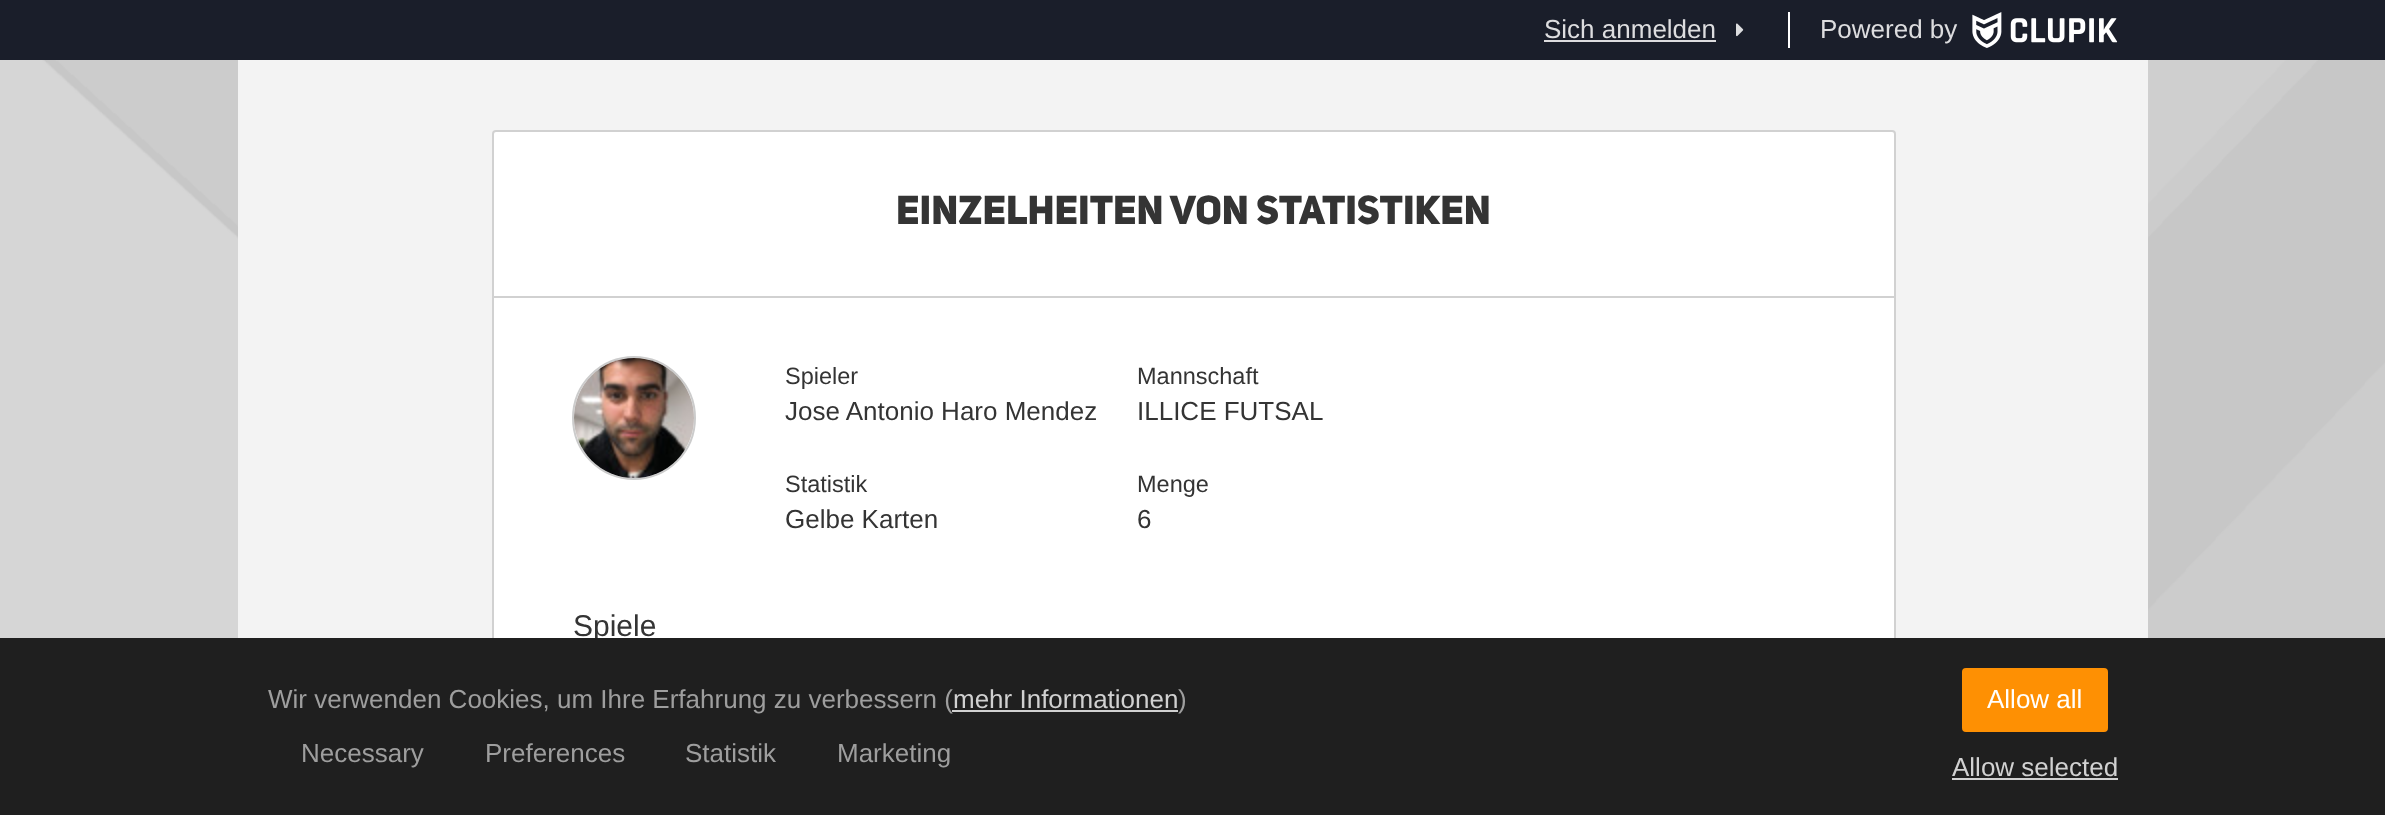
<svg xmlns="http://www.w3.org/2000/svg" width="2385" height="815" viewBox="0 0 2385 815">
  <rect width="100%" height="100%" fill="#f3f3f3"/>
  <image x="0" y="60" width="2385" height="578" href="img/4.png"/>
  <path d="M238 60h1910v578H238z" fill="#f3f3f3"/>
  <path d="M0 0h2385v60H0z" fill="#1a1e2a"/>
  <path d="M1544 40h172v2H1544z" fill="#dddddf"/>
  <image x="1736" y="23" width="8" height="14" href="img/1.png"/>
  <path d="M1788 12h2v36H1788z" fill="#fff"/>
  <image x="1972" y="12" width="146" height="36" href="img/2.png"/>
  <rect x="493" y="131" width="1402" height="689" rx="3" fill="#fff" stroke="#d1d1d1" stroke-width="2"/>
  <path d="M494 296h1400v2H494z" fill="#d1d1d1"/>
  <circle cx="634" cy="418" r="61" fill="none" stroke="#ccc" stroke-width="2"/>
  <image x="574" y="358" width="120" height="120" href="img/3.png"/>
  <g font-family="Liberation Sans" font-size="26" fill="#dddddf">
    <text x="1544" y="38">Sich anmelden</text>
    <text x="1820" y="38">Powered by</text>
  </g>
  <text x="896" y="224" font-family="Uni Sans" font-size="40" font-weight="900" fill="#343434">Einzelheiten von Statistiken</text>
  <text x="785" y="384" font-family="Liberation Sans" font-size="23.5" fill="#343434">Spieler</text>
  <text x="785" y="420" font-family="Liberation Sans" font-size="26" fill="#343434">Jose Antonio Haro Mendez</text>
  <text x="1137" y="384" font-family="Liberation Sans" font-size="23.5" fill="#343434">Mannschaft</text>
  <text x="1137" y="420" font-family="Liberation Sans" font-size="26" fill="#343434">ILLICE FUTSAL</text>
  <text x="785" y="492" font-family="Liberation Sans" font-size="23.5" fill="#343434">Statistik</text>
  <text x="785" y="528" font-family="Liberation Sans" font-size="26" fill="#343434">Gelbe Karten</text>
  <text x="1137" y="492" font-family="Liberation Sans" font-size="23.5" fill="#343434">Menge</text>
  <text x="1137" y="528" font-family="Liberation Sans" font-size="26" fill="#343434">6</text>
  <text x="573" y="636" font-family="Liberation Sans" font-size="30" fill="#343434">Spiele</text>
  <path d="M0 638h2385v177H0z" fill="#1f1f1f"/>
  <text x="268" y="708" font-family="Liberation Sans" font-size="26" fill="#9e9e9e">Wir verwenden Cookies, um Ihre Erfahrung zu verbessern (</text>
  <text x="953" y="708" font-family="Liberation Sans" font-size="26" fill="#d1d1d1">mehr Informationen</text>
  <path d="M952 710h226v2H952z" fill="#d1d1d1"/>
  <g font-family="Liberation Sans" font-size="26" fill="#9e9e9e">
    <text x="1178" y="708">)</text>
    <text x="301" y="762">Necessary</text>
    <text x="485" y="762">Preferences</text>
    <text x="685" y="762">Statistik</text>
    <text x="837" y="762">Marketing</text>
  </g>
  <rect x="1963" y="669" width="144" height="62" rx="3" fill="#fe9003" stroke="#fe9003" stroke-width="2"/>
  <text x="1987" y="708" font-family="Liberation Sans" font-size="26" fill="#fff">Allow all</text>
  <text x="1952" y="776" font-family="Liberation Sans" font-size="26" fill="#d1d1d1">Allow selected</text>
  <path d="M1952 778h166v2H1952z" fill="#d1d1d1"/>
</svg>
